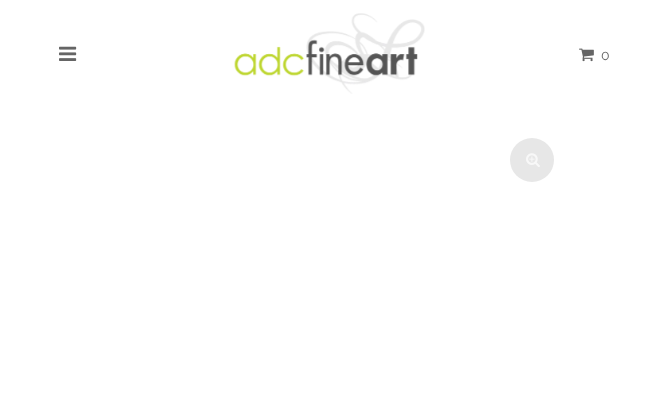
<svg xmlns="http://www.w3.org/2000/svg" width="659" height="402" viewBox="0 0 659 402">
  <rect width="100%" height="100%" fill="#fff"/>
  <image x="59" y="46" width="18" height="15" href="img/1.png"/>
  <image x="234" y="13" width="191" height="81" href="img/2.png"/>
  <image x="579" y="48" width="15" height="14" href="img/3.png"/>
  <circle cx="532" cy="160" r="22" fill="#e7e7e7"/>
  <image x="526" y="153" width="14" height="14" href="img/4.png"/>
  <text x="601" y="60" font-family="Raleway" font-size="14" fill="#656565">0</text>
</svg>
